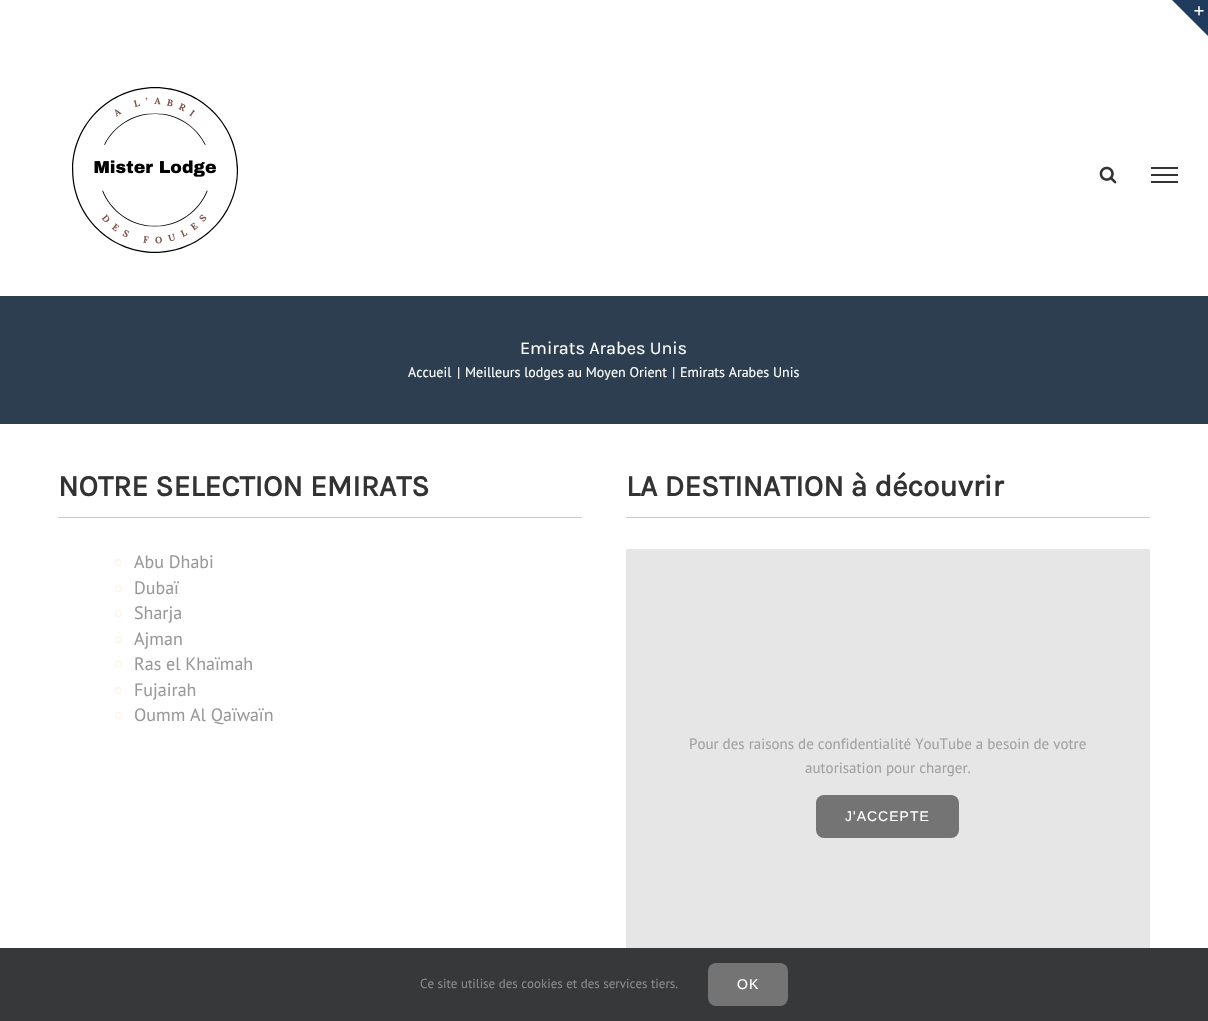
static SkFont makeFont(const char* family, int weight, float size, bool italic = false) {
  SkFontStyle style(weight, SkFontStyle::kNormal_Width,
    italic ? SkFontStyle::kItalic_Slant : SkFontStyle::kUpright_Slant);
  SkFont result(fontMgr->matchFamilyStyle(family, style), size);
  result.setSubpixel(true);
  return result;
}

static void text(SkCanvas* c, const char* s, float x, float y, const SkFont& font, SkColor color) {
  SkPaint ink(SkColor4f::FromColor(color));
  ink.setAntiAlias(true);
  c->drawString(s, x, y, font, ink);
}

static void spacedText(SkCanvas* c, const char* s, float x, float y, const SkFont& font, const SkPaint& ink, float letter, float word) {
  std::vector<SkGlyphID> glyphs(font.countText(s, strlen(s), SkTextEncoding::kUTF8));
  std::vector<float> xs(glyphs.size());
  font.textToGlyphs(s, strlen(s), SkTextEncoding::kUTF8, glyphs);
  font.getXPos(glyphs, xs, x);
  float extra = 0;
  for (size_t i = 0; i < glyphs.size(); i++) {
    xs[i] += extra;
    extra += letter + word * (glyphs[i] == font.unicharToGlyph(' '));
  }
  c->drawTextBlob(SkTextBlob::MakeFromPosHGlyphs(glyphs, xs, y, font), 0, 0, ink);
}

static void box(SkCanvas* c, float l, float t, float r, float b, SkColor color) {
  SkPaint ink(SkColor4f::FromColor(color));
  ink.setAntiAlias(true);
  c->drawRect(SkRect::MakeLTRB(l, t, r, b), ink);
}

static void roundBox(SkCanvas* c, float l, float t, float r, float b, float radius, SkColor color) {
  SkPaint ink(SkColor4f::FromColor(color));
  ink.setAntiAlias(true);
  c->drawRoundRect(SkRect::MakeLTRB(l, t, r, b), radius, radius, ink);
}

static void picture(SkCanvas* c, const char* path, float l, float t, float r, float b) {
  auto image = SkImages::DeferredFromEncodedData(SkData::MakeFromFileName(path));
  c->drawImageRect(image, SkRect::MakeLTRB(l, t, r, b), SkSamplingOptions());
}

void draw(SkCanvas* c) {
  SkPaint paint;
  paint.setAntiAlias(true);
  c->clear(0xffffffff);
  paint.setColor(0xff1f3b5e);
  c->drawPath(SkPathBuilder().moveTo(1172, 0).lineTo(1208, 0).lineTo(1208, 36).close().detach(), paint);
  picture(c, "img_01.png", 1194, 6, 1204, 16);
  picture(c, "img_02.png", 72, 87, 238, 253);
  picture(c, "img_03.png", 1099, 166, 1117, 184);
  box(c, 1151, 167, 1178, 169, 0xff333333);
  box(c, 1151, 174, 1178, 176, 0xff333333);
  box(c, 1151, 181, 1178, 183, 0xff333333);
  box(c, 0, 296, 1208, 424, 0xff2c3e50);
  SkFont face1 = makeFont("Karla", 400, 18);
  text(c, "Emirats Arabes Unis", 520, 354, face1, 0xffffffff);
  SkFont face2 = makeFont("PT Sans", 400, 14);
  text(c, "Accueil", 408, 377, face2, 0xffffffff);
  text(c, "|", 457, 377, face2, 0xffffffff);
  text(c, "Meilleurs lodges au Moyen Orient", 465, 377, face2, 0xffffffff);
  text(c, "|", 672, 377, face2, 0xffffffff);
  text(c, "Emirats Arabes Unis", 680, 377, face2, 0xffffffff);
  box(c, 58, 517, 582, 518, 0xffe2c3c3);
  SkFont face3 = makeFont("Karla", 700, 30);
  text(c, "NOTRE SELECTION EMIRATS", 58, 496, face3, 0xff333333);
  paint.setStyle(SkPaint::kStroke_Style);
  paint.setStrokeWidth(1);
  paint.setColor(0xffffefd5);
  c->drawCircle(118.5f, 562.5f, 3, paint);
  SkFont face4 = makeFont("PT Sans", 400, 18);
  text(c, "Abu Dhabi", 134, 568, face4, 0xff999999);
  c->drawCircle(118.5f, 588.5f, 3, paint);
  text(c, "Dubaï", 134, 594, face4, 0xff999999);
  c->drawCircle(118.5f, 613.5f, 3, paint);
  text(c, "Sharja", 134, 619, face4, 0xff999999);
  c->drawCircle(118.5f, 639.5f, 3, paint);
  text(c, "Ajman", 134, 645, face4, 0xff999999);
  c->drawCircle(118.5f, 664.5f, 3, paint);
  text(c, "Ras el Khaïmah", 134, 670, face4, 0xff999999);
  c->drawCircle(118.5f, 690.5f, 3, paint);
  text(c, "Fujairah", 134, 696, face4, 0xff999999);
  c->drawCircle(118.5f, 715.5f, 3, paint);
  text(c, "Oumm Al Qaïwaïn", 134, 721, face4, 0xff999999);
  box(c, 626, 517, 1150, 518, 0xffe2c3c3);
  text(c, "LA DESTINATION à découvrir", 626, 496, face3, 0xff333333);
  box(c, 626, 549, 1150, 948, 0xffe6e6e6);
  SkFont face5 = makeFont("PT Sans", 400, 15);
  text(c, "Pour des raisons de confidentialité YouTube a besoin de votre", 689, 749, face5, 0xffa1a1a1);
  text(c, "autorisation pour charger.", 805, 773, face5, 0xffa1a1a1);
  roundBox(c, 816, 795, 959, 838, 8, 0xff747474);
  SkFont face6 = makeFont("Liberation Sans", 400, 14);
  paint.setStyle(SkPaint::kFill_Style);
  paint.setColor(0xffffffff);
  spacedText(c, "J'ACCEPTE", 845, 821, face6, paint, 1, 0);
  box(c, 0, 948, 1208, 1021, 0xff363839);
  SkFont face7 = makeFont("PT Sans", 400, 13);
  text(c, "Ce site utilise des cookies et des services tiers.", 420, 988, face7, 0xff8c8989);
  roundBox(c, 708, 963, 788, 1006, 8, 0xff747474);
  spacedText(c, "OK", 737, 989, face6, paint, 1, 0);
}
